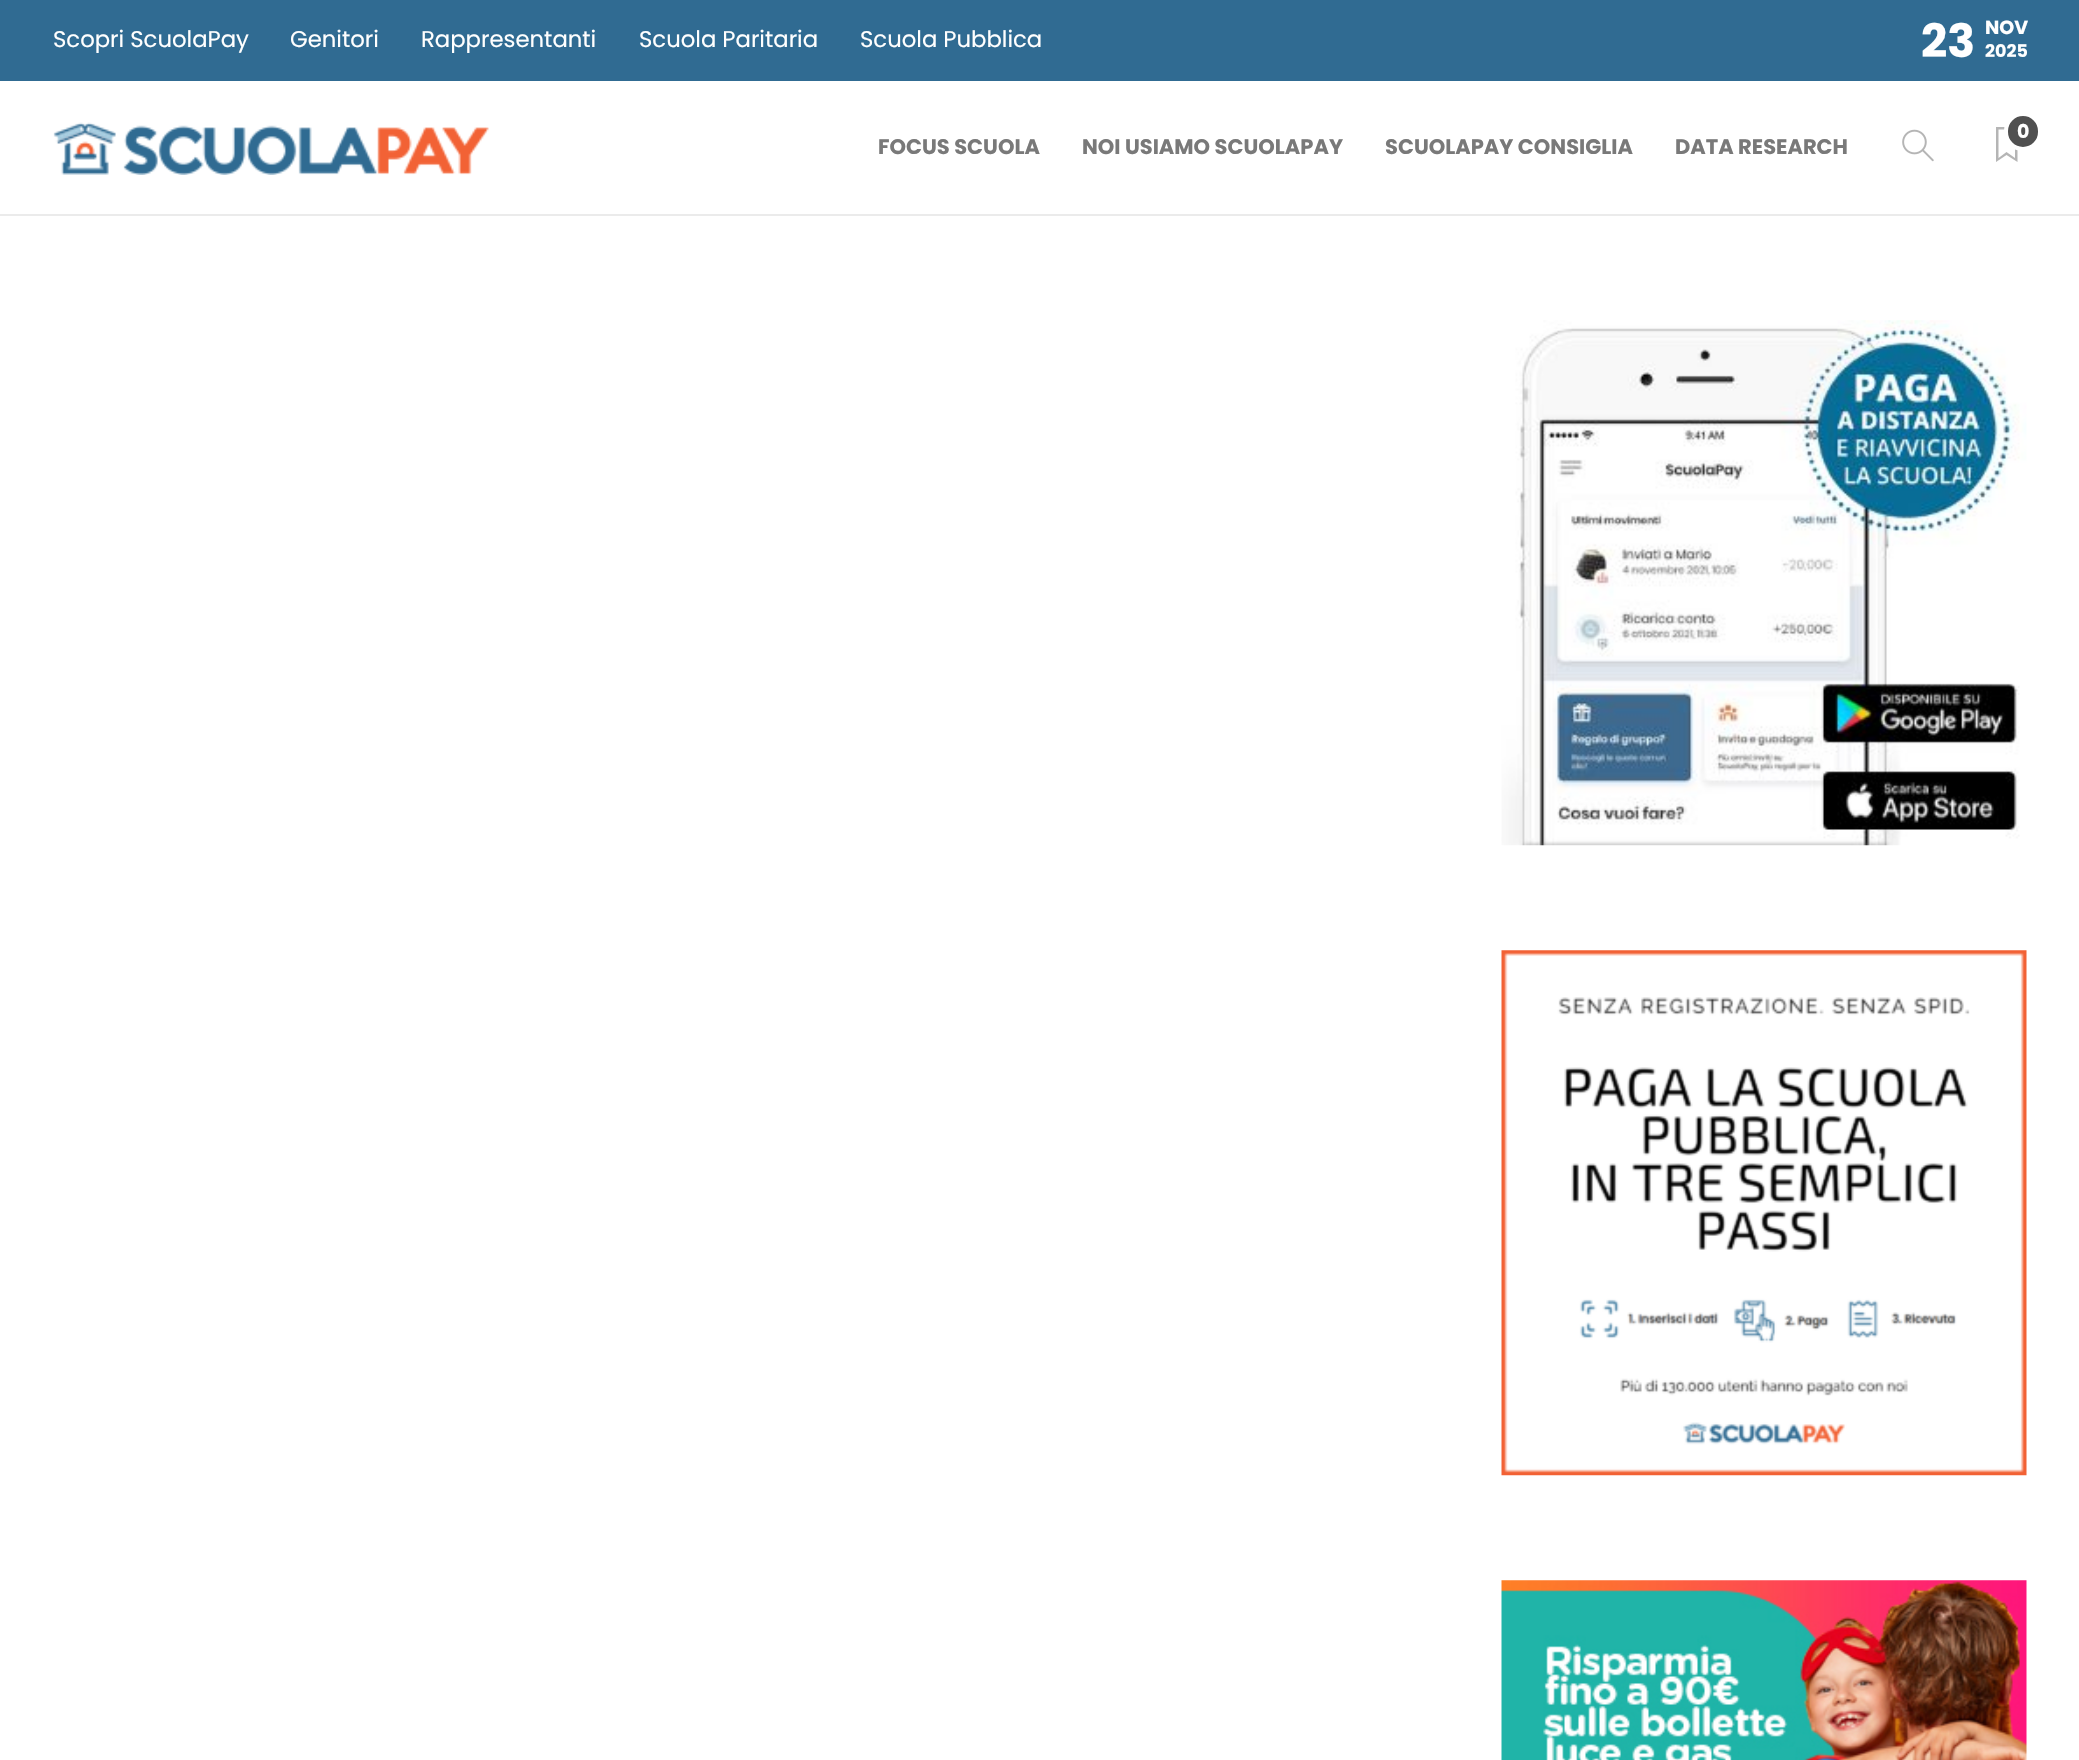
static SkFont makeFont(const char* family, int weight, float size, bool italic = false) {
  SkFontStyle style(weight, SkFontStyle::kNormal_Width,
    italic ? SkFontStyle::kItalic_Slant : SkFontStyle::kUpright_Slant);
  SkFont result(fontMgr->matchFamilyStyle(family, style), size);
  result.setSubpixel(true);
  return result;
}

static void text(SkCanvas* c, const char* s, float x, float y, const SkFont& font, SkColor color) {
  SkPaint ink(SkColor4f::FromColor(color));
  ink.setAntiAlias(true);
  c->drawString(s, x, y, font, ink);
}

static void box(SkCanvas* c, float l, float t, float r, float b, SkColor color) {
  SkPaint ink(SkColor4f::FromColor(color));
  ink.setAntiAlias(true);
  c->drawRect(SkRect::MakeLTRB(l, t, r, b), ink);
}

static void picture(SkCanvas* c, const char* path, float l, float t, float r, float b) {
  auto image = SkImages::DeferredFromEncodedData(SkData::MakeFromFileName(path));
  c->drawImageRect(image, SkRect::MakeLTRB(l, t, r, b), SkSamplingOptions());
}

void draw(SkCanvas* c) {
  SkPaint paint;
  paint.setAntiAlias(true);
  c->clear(0xffffffff);
  box(c, 0, 0, 2079, 81, 0xff306b92);
  SkFont face1 = makeFont("Poppins", 400, 22.75f);
  text(c, "Scopri ScuolaPay", 53, 47, face1, 0xffffffff);
  text(c, "Genitori", 290, 47, face1, 0xffffffff);
  text(c, "Rappresentanti", 421, 47, face1, 0xffffffff);
  text(c, "Scuola Paritaria", 639, 47, face1, 0xffffffff);
  text(c, "Scuola Pubblica", 860, 47, face1, 0xffffffff);
  SkFont face2 = makeFont("Poppins", 700, 46);
  text(c, "23", 1921, 57, face2, 0xffffffff);
  SkFont face3 = makeFont("Poppins", 700, 19);
  text(c, "NOV", 1985, 34, face3, 0xffffffff);
  SkFont face4 = makeFont("Poppins", 700, 17.5f);
  text(c, "2025", 1985, 57, face4, 0xffffffff);
  box(c, 0, 214, 2079, 216, 0xffebebeb);
  picture(c, "img_01.png", 53, 122, 489, 175);
  SkFont face5 = makeFont("Poppins", 700, 21);
  text(c, "FOCUS SCUOLA", 878, 154, face5, 0xff797979);
  text(c, "NOI USIAMO SCUOLAPAY", 1082, 154, face5, 0xff797979);
  text(c, "SCUOLAPAY CONSIGLIA", 1385, 154, face5, 0xff797979);
  text(c, "DATA RESEARCH", 1675, 154, face5, 0xff797979);
  picture(c, "img_02.png", 1902, 129, 1934, 162);
  paint.setColor(0xffb5b5b5);
  c->drawPath(SkPathBuilder().moveTo(1996, 127).lineTo(1996, 162).lineTo(2006.5f, 155).lineTo(2017.5f, 162).lineTo(2017.5f, 127).close().moveTo(2015, 158).lineTo(2006.5f, 152).lineTo(1998.5f, 158).lineTo(1998.5f, 129.5f).lineTo(2015, 129.5f).close().detach(), paint);
  paint.setColor(0xff505050);
  c->drawRoundRect(SkRect::MakeLTRB(2006, 114, 2040, 149), 17, 17, paint);
  paint.setStyle(SkPaint::kStroke_Style);
  paint.setStrokeWidth(4);
  paint.setColor(0xffffffff);
  c->drawRoundRect(SkRect::MakeLTRB(2006, 114, 2040, 149), 17, 17, paint);
  text(c, "0", 2017, 138, face3, 0xffffffff);
  picture(c, "img_03.png", 1501, 320, 2027, 846);
  picture(c, "img_04.png", 1501, 950, 2027, 1476);
  picture(c, "img_05.png", 1501, 1580, 2027, 1760);
}
